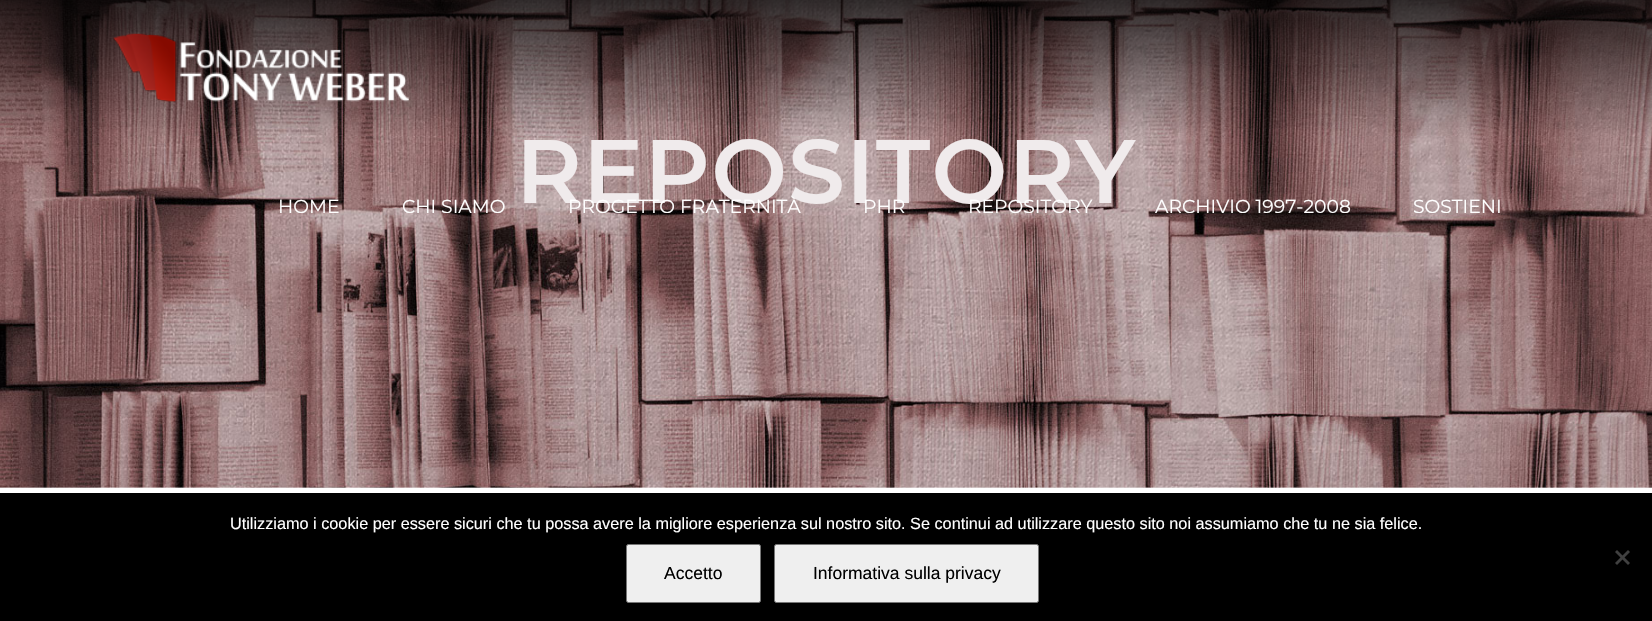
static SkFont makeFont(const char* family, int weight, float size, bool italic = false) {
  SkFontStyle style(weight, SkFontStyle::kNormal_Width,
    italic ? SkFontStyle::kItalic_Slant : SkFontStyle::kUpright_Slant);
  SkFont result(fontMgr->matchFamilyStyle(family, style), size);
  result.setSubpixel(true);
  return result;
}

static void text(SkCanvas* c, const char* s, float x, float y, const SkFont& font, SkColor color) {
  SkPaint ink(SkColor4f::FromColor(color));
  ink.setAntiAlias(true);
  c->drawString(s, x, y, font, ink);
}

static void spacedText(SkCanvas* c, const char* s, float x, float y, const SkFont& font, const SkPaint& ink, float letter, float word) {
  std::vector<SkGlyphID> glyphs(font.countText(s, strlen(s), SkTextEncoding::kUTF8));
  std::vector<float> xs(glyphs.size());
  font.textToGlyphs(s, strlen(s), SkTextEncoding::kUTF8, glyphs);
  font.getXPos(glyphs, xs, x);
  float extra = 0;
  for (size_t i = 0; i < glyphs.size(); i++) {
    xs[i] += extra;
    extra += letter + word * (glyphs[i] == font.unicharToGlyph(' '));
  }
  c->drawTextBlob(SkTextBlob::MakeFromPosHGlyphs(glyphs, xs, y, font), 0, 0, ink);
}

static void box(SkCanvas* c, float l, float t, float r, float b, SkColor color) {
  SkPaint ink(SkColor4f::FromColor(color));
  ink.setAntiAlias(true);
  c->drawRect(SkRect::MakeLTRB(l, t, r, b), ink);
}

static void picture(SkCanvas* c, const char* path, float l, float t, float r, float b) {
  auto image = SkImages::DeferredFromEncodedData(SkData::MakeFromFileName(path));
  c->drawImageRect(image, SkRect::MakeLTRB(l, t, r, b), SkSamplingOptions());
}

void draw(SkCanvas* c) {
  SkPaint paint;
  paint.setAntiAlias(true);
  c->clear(0xffffffff);
  picture(c, "img_01.png", 0, 0, 1652, 488);
  SkFont face1 = makeFont("Montserrat", 600, 90);
  paint.setColor(0xfff0ebec);
  spacedText(c, "REPOSITORY", 516, 203, face1, paint, 1.25f, 0);
  picture(c, "img_02.png", 113, 33, 409, 103);
  SkFont face2 = makeFont("Montserrat", 400, 18.75f);
  text(c, "HOME", 278, 213, face2, 0xffffffff);
  text(c, "CHI SIAMO", 402, 213, face2, 0xffffffff);
  text(c, "PROGETTO FRATERNITÀ", 568, 213, face2, 0xffffffff);
  text(c, "PHR", 863, 213, face2, 0xffffffff);
  text(c, "REPOSITORY", 968, 213, face2, 0xffffffff);
  text(c, "ARCHIVIO 1997-2008", 1155, 213, face2, 0xffffffff);
  text(c, "SOSTIENI", 1413, 213, face2, 0xffffffff);
  box(c, 0, 493, 1652, 621, 0xff000000);
  SkFont face3 = makeFont("Liberation Sans", 400, 16.25f);
  text(c, "Utilizziamo i cookie per essere sicuri che tu possa avere la migliore esperienza sul nostro sito. Se continui ad utilizzare questo sito noi assumiamo che tu ne sia felice.", 230, 529, face3, 0xffffffff);
  paint.setColor(0xff404040);
  c->drawPath(SkPathBuilder().moveTo(1628, 550).lineTo(1630, 552).lineTo(1617, 565).lineTo(1615, 563).close().detach(), paint);
  c->drawPath(SkPathBuilder().moveTo(1615, 552).lineTo(1617, 550).lineTo(1630, 563).lineTo(1628, 565).close().detach(), paint);
  paint.setColor(0xffefefef);
  c->drawRoundRect(SkRect::MakeLTRB(626.5f, 544.5f, 760.5f, 602.5f), 2, 2, paint);
  paint.setStyle(SkPaint::kStroke_Style);
  paint.setStrokeWidth(1);
  paint.setColor(0xff767676);
  c->drawRoundRect(SkRect::MakeLTRB(626.5f, 544.5f, 760.5f, 602.5f), 2, 2, paint);
  SkFont face4 = makeFont("Liberation Sans", 400, 17.5f);
  text(c, "Accetto", 664, 579, face4, 0xff000000);
  paint.setStyle(SkPaint::kFill_Style);
  paint.setColor(0xffefefef);
  c->drawRoundRect(SkRect::MakeLTRB(774.5f, 544.5f, 1038.5f, 602.5f), 2, 2, paint);
  paint.setStyle(SkPaint::kStroke_Style);
  paint.setColor(0xff767676);
  c->drawRoundRect(SkRect::MakeLTRB(774.5f, 544.5f, 1038.5f, 602.5f), 2, 2, paint);
  text(c, "Informativa sulla privacy", 813, 579, face4, 0xff000000);
}
